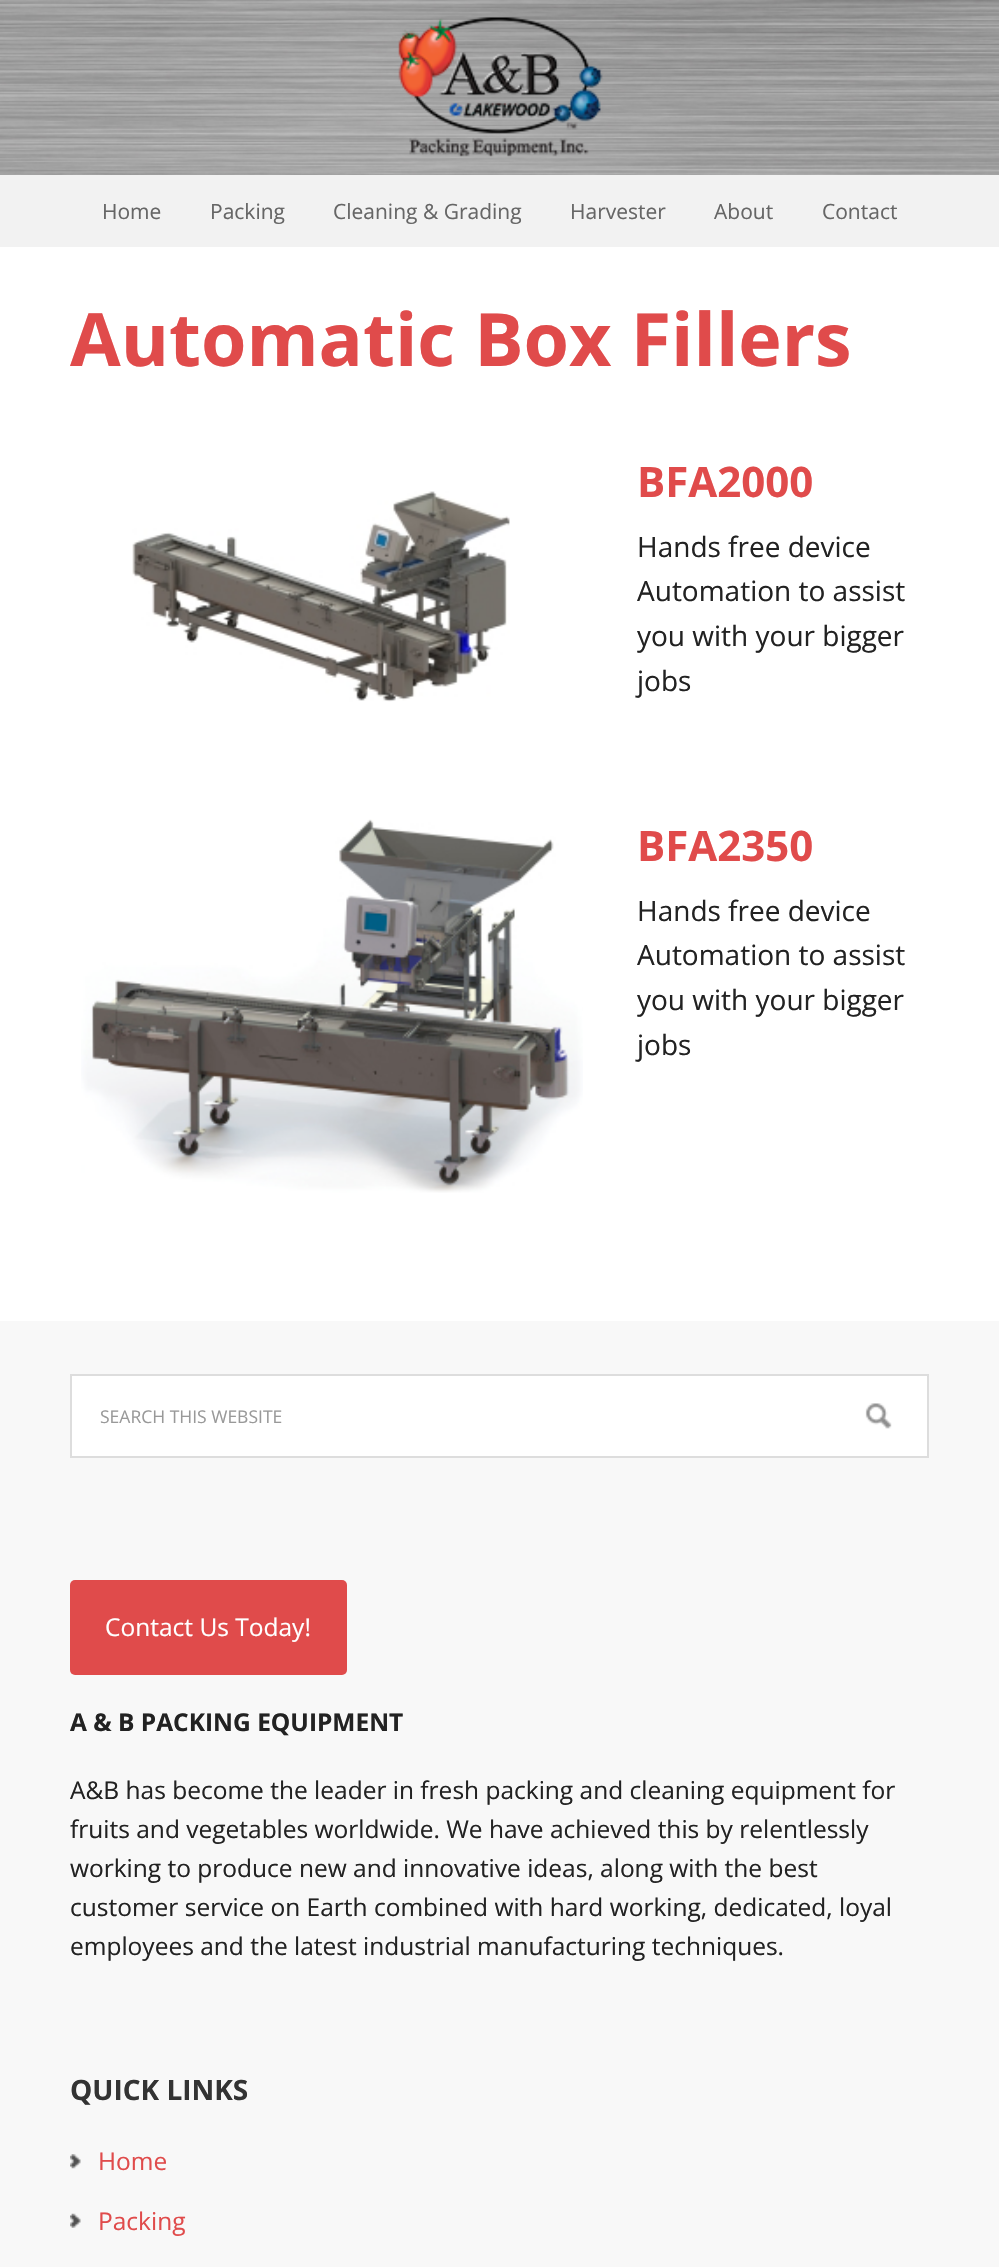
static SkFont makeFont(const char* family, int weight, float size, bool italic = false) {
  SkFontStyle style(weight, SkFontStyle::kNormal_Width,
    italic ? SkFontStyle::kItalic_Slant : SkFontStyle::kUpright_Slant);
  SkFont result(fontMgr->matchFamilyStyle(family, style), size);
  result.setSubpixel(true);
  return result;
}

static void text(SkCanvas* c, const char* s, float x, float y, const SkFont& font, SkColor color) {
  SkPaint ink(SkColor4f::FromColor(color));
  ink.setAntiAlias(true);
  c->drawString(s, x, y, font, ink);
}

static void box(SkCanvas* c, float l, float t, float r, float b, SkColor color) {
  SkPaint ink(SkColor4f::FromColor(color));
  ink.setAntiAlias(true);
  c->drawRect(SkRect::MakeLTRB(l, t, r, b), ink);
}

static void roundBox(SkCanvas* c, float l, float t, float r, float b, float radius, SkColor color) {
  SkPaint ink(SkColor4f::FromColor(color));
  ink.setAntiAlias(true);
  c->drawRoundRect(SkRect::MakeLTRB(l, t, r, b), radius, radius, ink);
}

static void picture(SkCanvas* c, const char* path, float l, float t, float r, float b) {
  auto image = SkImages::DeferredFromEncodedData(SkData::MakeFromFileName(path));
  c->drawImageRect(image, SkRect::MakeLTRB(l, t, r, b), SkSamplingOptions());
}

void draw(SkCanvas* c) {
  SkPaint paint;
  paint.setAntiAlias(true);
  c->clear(0xffffffff);
  picture(c, "img_01.png", 0, 0, 999, 175);
  picture(c, "img_02.png", 398, 17, 603, 157);
  box(c, 0, 175, 999, 247, 0xfff2f2f2);
  SkFont face1 = makeFont("Open Sans", 400, 21);
  text(c, "Home", 102, 219, face1, 0xff666666);
  text(c, "Packing", 210, 219, face1, 0xff666666);
  text(c, "Cleaning & Grading", 333, 219, face1, 0xff666666);
  text(c, "Harvester", 570, 219, face1, 0xff666666);
  text(c, "About", 714, 219, face1, 0xff666666);
  text(c, "Contact", 822, 219, face1, 0xff666666);
  SkFont face2 = makeFont("Open Sans", 700, 73.5f);
  text(c, "Automatic Box Fillers", 70, 366, face2, 0xffe04b4b);
  SkFont face3 = makeFont("Open Sans", 700, 42);
  text(c, "BFA2000", 637, 497, face3, 0xffe04b4b);
  picture(c, "img_03.png", 132, 491, 510, 702);
  SkFont face4 = makeFont("Open Sans", 400, 28);
  text(c, "Hands free device", 637, 557, face4, 0xff222222);
  text(c, "Automation to assist", 637, 601, face4, 0xff222222);
  text(c, "you with your bigger", 637, 646, face4, 0xff222222);
  text(c, "jobs", 637, 691, face4, 0xff222222);
  picture(c, "img_04.png", 81, 819, 583, 1193);
  text(c, "BFA2350", 637, 861, face3, 0xffe04b4b);
  text(c, "Hands free device", 637, 921, face4, 0xff222222);
  text(c, "Automation to assist", 637, 965, face4, 0xff222222);
  text(c, "you with your bigger", 637, 1010, face4, 0xff222222);
  text(c, "jobs", 637, 1055, face4, 0xff222222);
  box(c, 0, 1321, 999, 2267, 0xfff8f8f8);
  box(c, 72, 1376, 927, 1456, 0xffffffff);
  picture(c, "img_05.png", 865, 1403, 892, 1429);
  paint.setStyle(SkPaint::kStroke_Style);
  paint.setStrokeWidth(2);
  paint.setColor(0xffdddddd);
  c->drawRect(SkRect::MakeLTRB(71, 1375, 928, 1457), paint);
  SkFont face5 = makeFont("Open Sans", 400, 17.5f);
  text(c, "SEARCH THIS WEBSITE", 100, 1423, face5, 0xff999999);
  roundBox(c, 70, 1580, 347, 1675, 5, 0xffe04b4b);
  SkFont face6 = makeFont("Open Sans", 400, 24.5f);
  text(c, "Contact Us Today!", 105, 1636, face6, 0xffffffff);
  SkFont face7 = makeFont("Open Sans", 700, 24.5f);
  text(c, "A & B PACKING EQUIPMENT", 70, 1731, face7, 0xff222222);
  text(c, "A&B has become the leader in fresh packing and cleaning equipment for", 70, 1799, face6, 0xff222222);
  text(c, "fruits and vegetables worldwide. We have achieved this by relentlessly", 70, 1838, face6, 0xff222222);
  text(c, "working to produce new and innovative ideas, along with the best", 70, 1877, face6, 0xff222222);
  text(c, "customer service on Earth combined with hard working, dedicated, loyal", 70, 1916, face6, 0xff222222);
  text(c, "employees and the latest industrial manufacturing techniques.", 70, 1955, face6, 0xff222222);
  SkFont face8 = makeFont("Open Sans", 700, 28);
  text(c, "QUICK LINKS", 70, 2100, face8, 0xff333333);
  picture(c, "img_06.png", 70, 2154, 81, 2169);
  text(c, "Home", 98, 2170, face6, 0xffe04b4b);
  picture(c, "img_07.png", 70, 2213, 81, 2228);
  text(c, "Packing", 98, 2230, face6, 0xffe04b4b);
}
